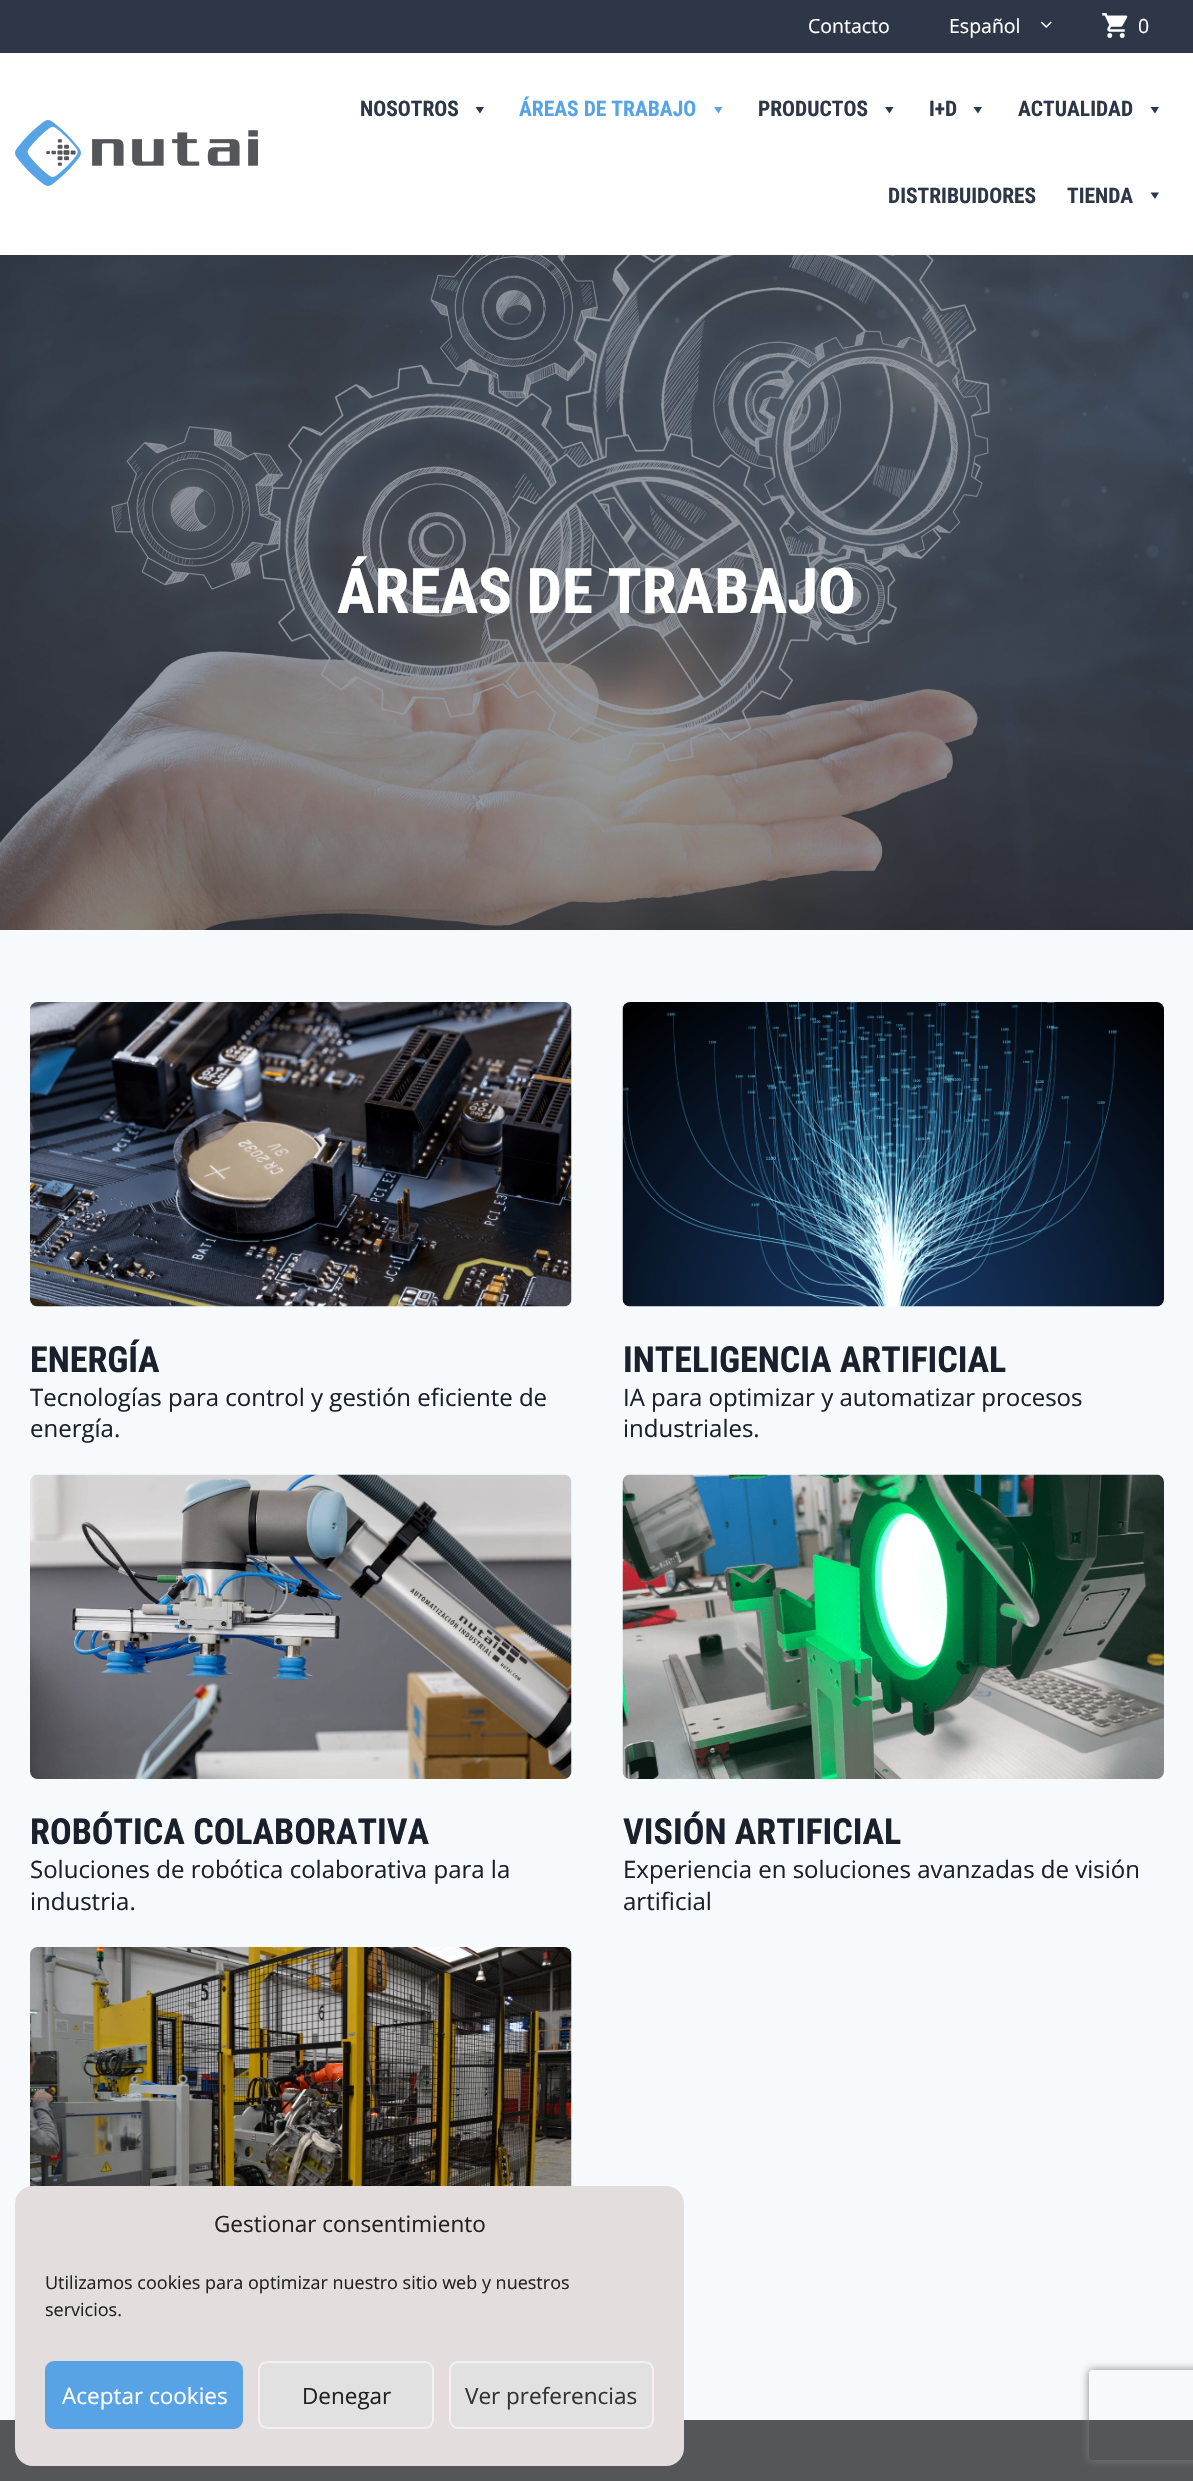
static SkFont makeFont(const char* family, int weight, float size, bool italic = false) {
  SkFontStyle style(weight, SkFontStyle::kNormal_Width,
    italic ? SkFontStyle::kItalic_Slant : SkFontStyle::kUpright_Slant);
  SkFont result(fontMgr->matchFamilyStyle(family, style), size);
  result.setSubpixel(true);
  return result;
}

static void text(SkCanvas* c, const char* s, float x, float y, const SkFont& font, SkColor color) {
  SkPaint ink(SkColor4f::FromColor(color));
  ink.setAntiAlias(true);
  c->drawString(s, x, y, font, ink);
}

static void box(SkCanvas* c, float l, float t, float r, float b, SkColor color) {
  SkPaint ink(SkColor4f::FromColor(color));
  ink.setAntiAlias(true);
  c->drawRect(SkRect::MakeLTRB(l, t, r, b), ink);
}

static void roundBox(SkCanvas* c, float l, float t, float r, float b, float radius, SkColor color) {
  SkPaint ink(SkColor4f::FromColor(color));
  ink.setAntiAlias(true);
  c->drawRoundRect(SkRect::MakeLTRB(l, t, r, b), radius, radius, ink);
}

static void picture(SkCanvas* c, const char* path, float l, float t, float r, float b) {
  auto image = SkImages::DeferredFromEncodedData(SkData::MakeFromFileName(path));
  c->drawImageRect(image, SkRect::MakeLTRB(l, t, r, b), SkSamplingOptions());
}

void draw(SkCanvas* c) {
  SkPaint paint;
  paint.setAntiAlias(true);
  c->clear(0xfff7fafc);
  box(c, 0, 0, 1193, 53, 0xff2d3748);
  SkFont face1 = makeFont("Open Sans", 400, 19.5f);
  text(c, "Contacto", 808, 33, face1, 0xffffffff);
  text(c, "Español", 949, 33, face1, 0xffffffff);
  picture(c, "img_01.png", 1040, 21, 1052, 28);
  picture(c, "img_02.png", 1102, 13, 1128, 38);
  text(c, "0", 1138, 33, face1, 0xffffffff);
  box(c, 0, 53, 1193, 255, 0xffffffff);
  picture(c, "img_03.png", 15, 120, 258, 186);
  SkFont face2 = makeFont("Roboto Condensed", 700, 21.5f);
  text(c, "NOSOTROS", 360, 116, face2, 0xff2d3748);
  paint.setColor(0xff2d3748);
  c->drawPath(SkPathBuilder().moveTo(484, 107).lineTo(480, 113.5f).lineTo(475.5f, 107).close().detach(), paint);
  text(c, "ÁREAS DE TRABAJO", 519, 116, face2, 0xff58a3e6);
  paint.setColor(0xff58a3e6);
  c->drawPath(SkPathBuilder().moveTo(722.5f, 107).lineTo(718.5f, 113.5f).lineTo(714, 107).close().detach(), paint);
  text(c, "PRODUCTOS", 758, 116, face2, 0xff2d3748);
  paint.setColor(0xff2d3748);
  c->drawPath(SkPathBuilder().moveTo(893.5f, 107).lineTo(889.5f, 113.5f).lineTo(885, 107).close().detach(), paint);
  text(c, "I+D", 929, 116, face2, 0xff2d3748);
  c->drawPath(SkPathBuilder().moveTo(982, 107).lineTo(978, 113.5f).lineTo(973.5f, 107).close().detach(), paint);
  text(c, "ACTUALIDAD", 1018, 116, face2, 0xff2d3748);
  c->drawPath(SkPathBuilder().moveTo(1159, 107).lineTo(1155, 113.5f).lineTo(1150.5f, 107).close().detach(), paint);
  text(c, "DISTRIBUIDORES", 888, 203, face2, 0xff2d3748);
  text(c, "TIENDA", 1067, 203, face2, 0xff2d3748);
  c->drawPath(SkPathBuilder().moveTo(1159, 192.5f).lineTo(1155, 199).lineTo(1150.5f, 192.5f).close().detach(), paint);
  picture(c, "img_04.png", 0, 255, 1193, 930);
  SkFont face3 = makeFont("Roboto Condensed", 700, 63);
  text(c, "ÁREAS DE TRABAJO", 337, 613, face3, 0xffffffff);
  picture(c, "img_05.png", 30, 1002, 572, 1307);
  SkFont face4 = makeFont("Roboto Condensed", 700, 36);
  text(c, "ENERGÍA", 30, 1372, face4, 0xff1a202c);
  SkFont face5 = makeFont("Open Sans", 400, 24);
  text(c, "Tecnologías para control y gestión eficiente de", 30, 1406, face5, 0xff1a202c);
  text(c, "energía.", 30, 1437, face5, 0xff1a202c);
  picture(c, "img_06.png", 622, 1002, 1164, 1307);
  text(c, "INTELIGENCIA ARTIFICIAL", 623, 1372, face4, 0xff1a202c);
  text(c, "IA para optimizar y automatizar procesos", 623, 1406, face5, 0xff1a202c);
  text(c, "industriales.", 623, 1437, face5, 0xff1a202c);
  picture(c, "img_07.png", 30, 1474, 572, 1779);
  text(c, "ROBÓTICA COLABORATIVA", 30, 1844, face4, 0xff1a202c);
  text(c, "Soluciones de robótica colaborativa para la", 30, 1878, face5, 0xff1a202c);
  text(c, "industria.", 30, 1910, face5, 0xff1a202c);
  picture(c, "img_08.png", 622, 1474, 1164, 1779);
  text(c, "VISIÓN ARTIFICIAL", 623, 1844, face4, 0xff1a202c);
  text(c, "Experiencia en soluciones avanzadas de visión", 623, 1878, face5, 0xff1a202c);
  text(c, "artificial", 623, 1910, face5, 0xff1a202c);
  picture(c, "img_09.png", 30, 1947, 572, 2187);
  box(c, 0, 2420, 1193, 2481, 0xff54565a);
  roundBox(c, 15, 2186, 684, 2466, 18, 0xffe4dddd);
  SkFont face6 = makeFont("Open Sans", 400, 22.5f);
  text(c, "Gestionar consentimiento", 214, 2232, face6, 0xff222222);
  SkFont face7 = makeFont("Open Sans", 400, 18);
  text(c, "Utilizamos cookies para optimizar nuestro sitio web y nuestros", 45, 2289, face7, 0xff222222);
  text(c, "servicios.", 45, 2316, face7, 0xff222222);
  paint.setColor(0xff58a3e6);
  c->drawRoundRect(SkRect::MakeLTRB(46, 2362, 242, 2428), 8, 8, paint);
  paint.setStyle(SkPaint::kStroke_Style);
  paint.setStrokeWidth(2);
  c->drawRoundRect(SkRect::MakeLTRB(46, 2362, 242, 2428), 8, 8, paint);
  text(c, "Aceptar cookies", 62, 2404, face6, 0xffffffff);
  paint.setStyle(SkPaint::kFill_Style);
  paint.setColor(0xffe2e1e1);
  c->drawRoundRect(SkRect::MakeLTRB(259, 2362, 433, 2428), 8, 8, paint);
  paint.setStyle(SkPaint::kStroke_Style);
  paint.setColor(0xfff2f2f2);
  c->drawRoundRect(SkRect::MakeLTRB(259, 2362, 433, 2428), 8, 8, paint);
  text(c, "Denegar", 302, 2404, face6, 0xff222222);
  paint.setStyle(SkPaint::kFill_Style);
  paint.setColor(0xffe2e1e1);
  c->drawRoundRect(SkRect::MakeLTRB(450, 2362, 653, 2428), 8, 8, paint);
  paint.setStyle(SkPaint::kStroke_Style);
  paint.setColor(0xfff2f2f2);
  c->drawRoundRect(SkRect::MakeLTRB(450, 2362, 653, 2428), 8, 8, paint);
  text(c, "Ver preferencias", 465, 2404, face6, 0xff333333);
  c->save();
  c->clipPath(SkPathBuilder(SkPathFillType::kEvenOdd).moveTo(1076, 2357).lineTo(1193, 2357).lineTo(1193, 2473).lineTo(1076, 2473).close().moveTo(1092, 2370).lineTo(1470, 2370).cubicTo(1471.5f, 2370, 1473, 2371.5f, 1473, 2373).lineTo(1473, 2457).cubicTo(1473, 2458.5f, 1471.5f, 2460, 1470, 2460).lineTo(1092, 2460).cubicTo(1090.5f, 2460, 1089, 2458.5f, 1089, 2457).lineTo(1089, 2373).cubicTo(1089, 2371.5f, 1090.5f, 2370, 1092, 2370).close().detach(), true);
  paint.setStyle(SkPaint::kFill_Style);
  paint.setColor(0xff808080);
  paint.setMaskFilter(SkMaskFilter::MakeBlur(kNormal_SkBlurStyle, 4));
  c->drawRoundRect(SkRect::MakeLTRB(1089, 2370, 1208, 2460), 3, 3, paint);
  paint.setMaskFilter(nullptr);
  c->restore();
}
